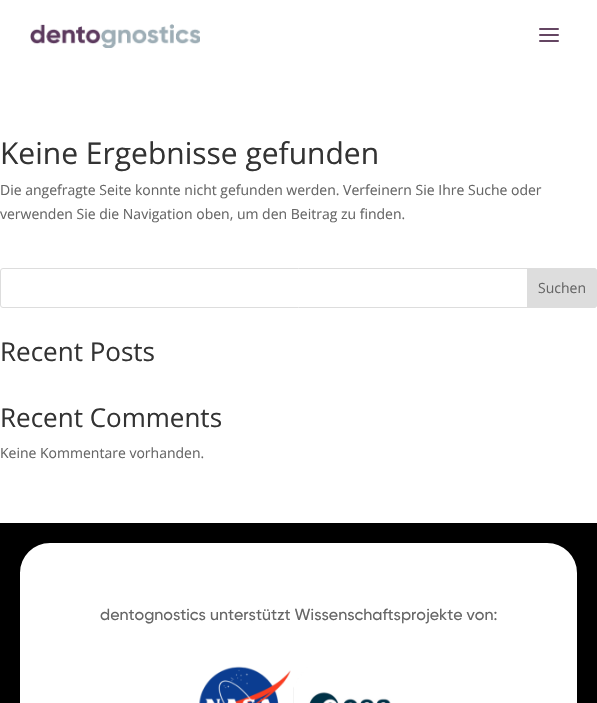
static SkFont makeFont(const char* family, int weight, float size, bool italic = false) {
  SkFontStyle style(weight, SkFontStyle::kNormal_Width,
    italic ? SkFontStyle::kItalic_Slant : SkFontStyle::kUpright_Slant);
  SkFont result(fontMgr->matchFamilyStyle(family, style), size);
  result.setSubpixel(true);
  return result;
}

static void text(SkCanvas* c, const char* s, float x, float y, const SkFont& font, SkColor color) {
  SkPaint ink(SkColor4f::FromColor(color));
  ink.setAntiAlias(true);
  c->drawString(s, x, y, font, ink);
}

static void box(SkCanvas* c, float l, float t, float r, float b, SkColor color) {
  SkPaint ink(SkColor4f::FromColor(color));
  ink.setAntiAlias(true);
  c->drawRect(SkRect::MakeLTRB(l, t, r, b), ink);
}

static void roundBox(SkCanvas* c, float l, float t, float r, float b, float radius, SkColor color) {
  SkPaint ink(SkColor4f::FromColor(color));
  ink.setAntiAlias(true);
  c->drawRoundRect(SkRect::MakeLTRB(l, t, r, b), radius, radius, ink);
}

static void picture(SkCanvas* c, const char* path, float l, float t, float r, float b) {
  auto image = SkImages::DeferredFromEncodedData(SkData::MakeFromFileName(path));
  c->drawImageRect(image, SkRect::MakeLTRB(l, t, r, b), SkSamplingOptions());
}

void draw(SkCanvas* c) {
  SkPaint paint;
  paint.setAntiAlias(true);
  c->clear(0xffffffff);
  picture(c, "img_01.png", 30, 24, 200, 48);
  roundBox(c, 539, 28, 559, 30, 1, 0xff644562);
  roundBox(c, 539, 34, 559, 36, 1, 0xff644562);
  roundBox(c, 539, 40, 559, 42, 1, 0xff644562);
  SkFont face1 = makeFont("Open Sans", 400, 30);
  text(c, "Keine Ergebnisse gefunden", 0, 164, face1, 0xff333333);
  SkFont face2 = makeFont("Open Sans", 400, 14);
  text(c, "Die angefragte Seite konnte nicht gefunden werden. Verfeinern Sie Ihre Suche oder", 0, 195, face2, 0xff666666);
  text(c, "verwenden Sie die Navigation oben, um den Beitrag zu finden.", 0, 219, face2, 0xff666666);
  paint.setStyle(SkPaint::kStroke_Style);
  paint.setStrokeWidth(1);
  paint.setColor(0xffdddddd);
  c->drawRoundRect(SkRect::MakeLTRB(0.5f, 268.5f, 596.5f, 307.5f), 2.5f, 2.5f, paint);
  paint.setStyle(SkPaint::kFill_Style);
  c->drawPath(SkPathBuilder().moveTo(527.5f, 268.5f).lineTo(594, 268.5f).cubicTo(595.5f, 268.5f, 596.5f, 269.5f, 596.5f, 271).lineTo(596.5f, 305).cubicTo(596.5f, 306.5f, 595.5f, 307.5f, 594, 307.5f).lineTo(527.5f, 307.5f).close().detach(), paint);
  paint.setStyle(SkPaint::kStroke_Style);
  c->drawPath(SkPathBuilder().moveTo(527.5f, 268.5f).lineTo(594, 268.5f).cubicTo(595.5f, 268.5f, 596.5f, 269.5f, 596.5f, 271).lineTo(596.5f, 305).cubicTo(596.5f, 306.5f, 595.5f, 307.5f, 594, 307.5f).lineTo(527.5f, 307.5f).close().detach(), paint);
  text(c, "Suchen", 538, 293, face2, 0xff666666);
  SkFont face3 = makeFont("Open Sans", 400, 26);
  text(c, "Recent Posts", 0, 361, face3, 0xff333333);
  text(c, "Recent Comments", 0, 427, face3, 0xff333333);
  text(c, "Keine Kommentare vorhanden.", 0, 458, face2, 0xff666666);
  box(c, 0, 523, 597, 573, 0xff000000);
  paint.setStyle(SkPaint::kFill_Style);
  paint.setColor(0xffffffff);
  c->drawRoundRect(SkRect::MakeLTRB(10, 533, 587, 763), 40, 40, paint);
  paint.setStyle(SkPaint::kStroke_Style);
  paint.setStrokeWidth(20);
  paint.setColor(0xff000000);
  c->drawRoundRect(SkRect::MakeLTRB(10, 533, 587, 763), 40, 40, paint);
  SkFont face4 = makeFont("Gilroy", 500, 16);
  text(c, "dentognostics unterstützt Wissenschaftsprojekte von:", 100, 620, face4, 0xff666666);
  picture(c, "img_02.png", 199, 666, 391, 703);
}
